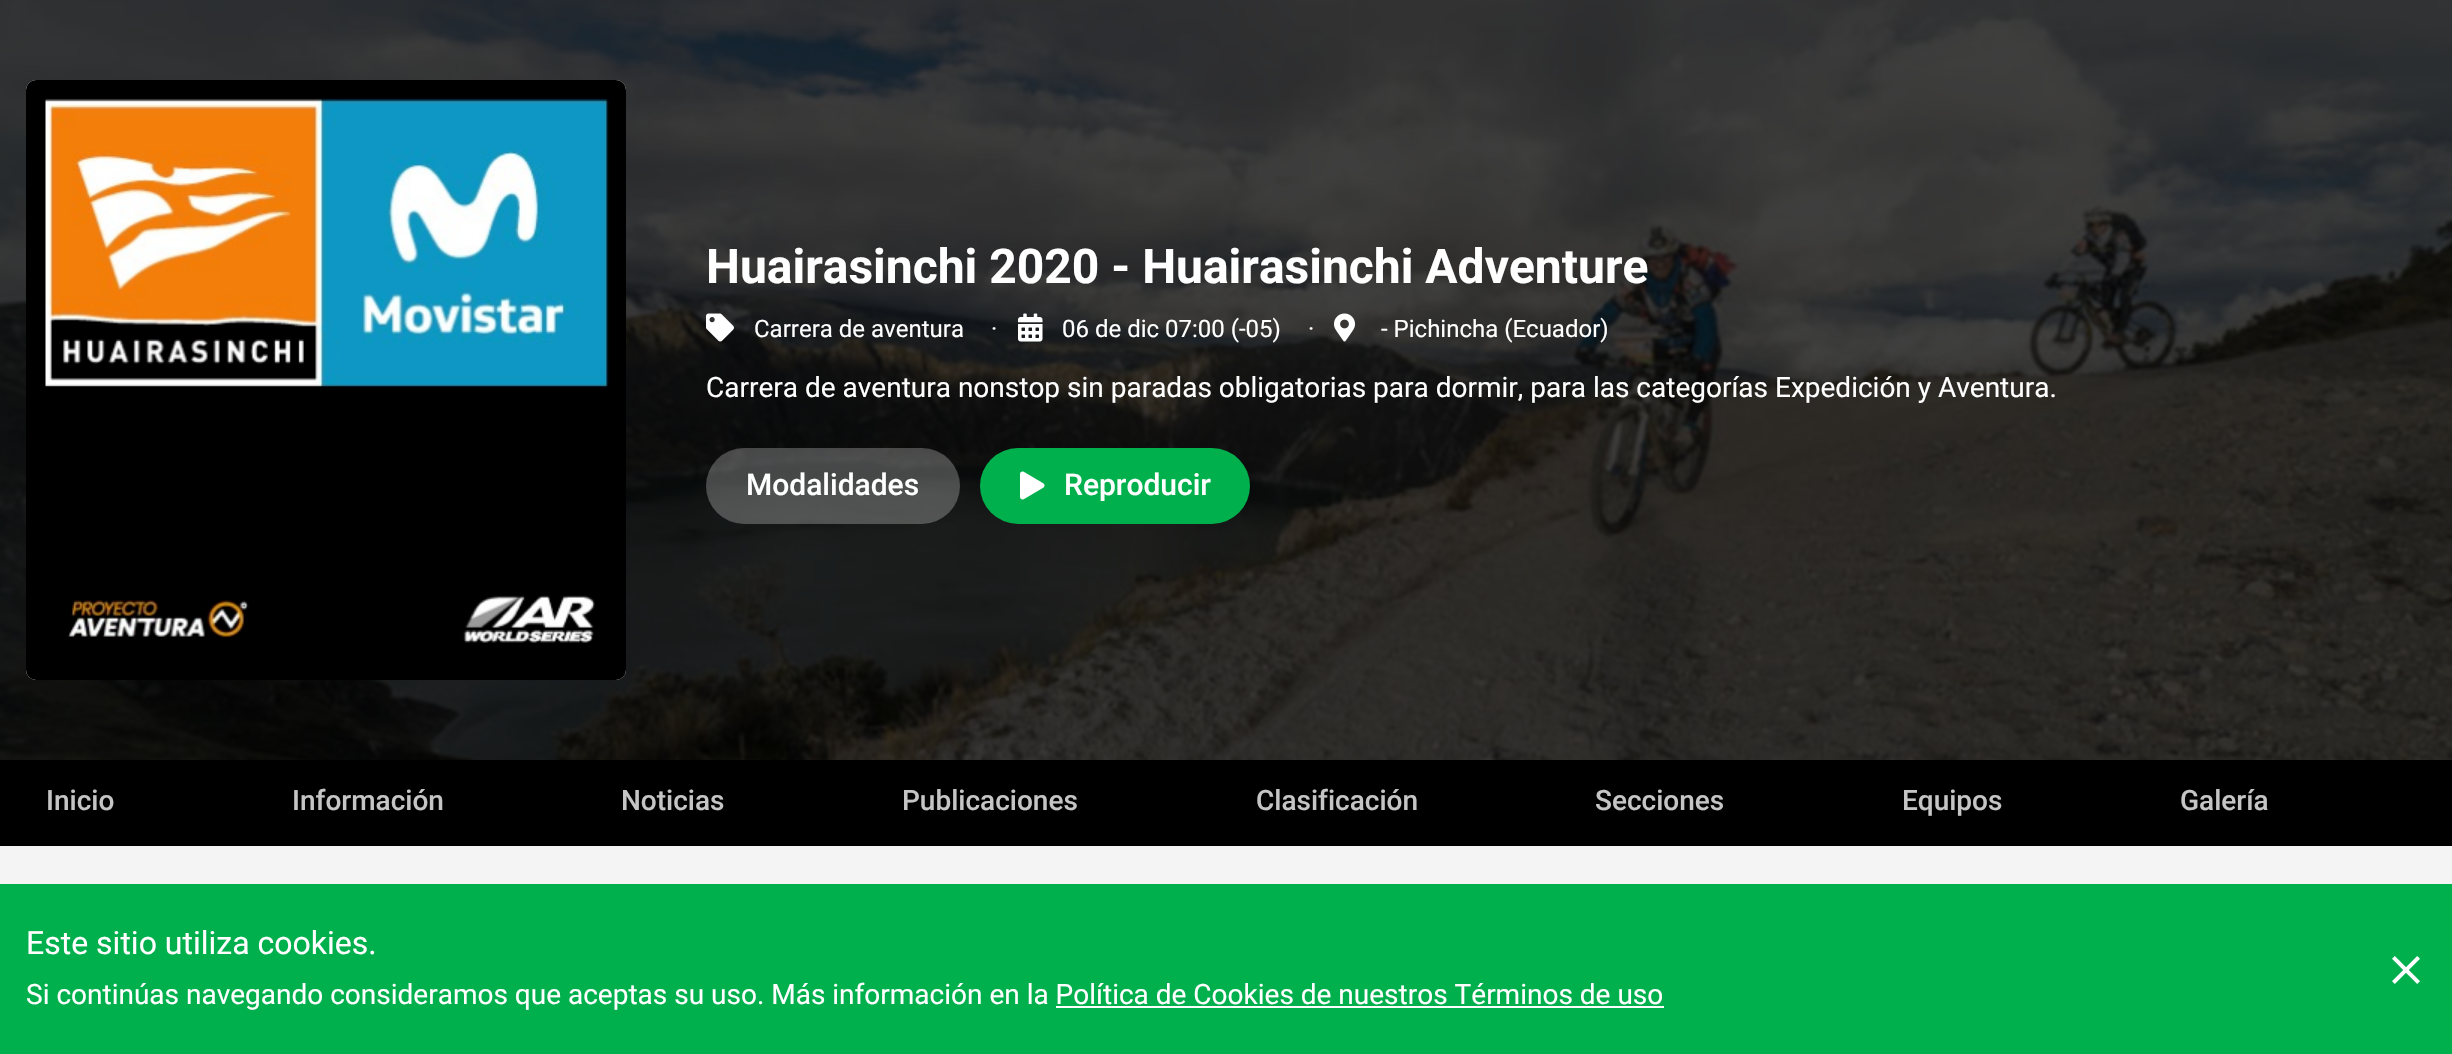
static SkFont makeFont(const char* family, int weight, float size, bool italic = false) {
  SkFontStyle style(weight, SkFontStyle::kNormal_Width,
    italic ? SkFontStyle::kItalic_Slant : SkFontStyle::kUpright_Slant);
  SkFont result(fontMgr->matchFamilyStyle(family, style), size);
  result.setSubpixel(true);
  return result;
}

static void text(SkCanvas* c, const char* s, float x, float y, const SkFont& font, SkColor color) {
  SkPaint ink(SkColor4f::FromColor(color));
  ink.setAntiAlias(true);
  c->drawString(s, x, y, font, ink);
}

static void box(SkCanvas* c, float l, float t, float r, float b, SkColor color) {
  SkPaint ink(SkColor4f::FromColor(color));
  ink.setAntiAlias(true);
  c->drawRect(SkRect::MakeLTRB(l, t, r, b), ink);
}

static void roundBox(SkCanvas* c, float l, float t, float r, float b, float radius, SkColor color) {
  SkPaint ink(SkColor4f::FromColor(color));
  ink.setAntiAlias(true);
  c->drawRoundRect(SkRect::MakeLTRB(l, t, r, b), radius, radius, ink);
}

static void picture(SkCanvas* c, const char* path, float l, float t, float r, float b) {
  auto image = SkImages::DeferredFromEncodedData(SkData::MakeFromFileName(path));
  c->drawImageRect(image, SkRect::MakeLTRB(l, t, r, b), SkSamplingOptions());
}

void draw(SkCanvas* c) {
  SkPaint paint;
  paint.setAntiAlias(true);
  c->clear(0xfff4f4f4);
  picture(c, "img_01.png", 0, 0, 2452, 760);
  roundBox(c, 26, 80, 626, 680, 10, 0xffffffff);
  picture(c, "img_02.png", 26, 80, 626, 680);
  SkFont face1 = makeFont("Roboto", 700, 48);
  text(c, "Huairasinchi 2020 - Huairasinchi Adventure", 706, 283, face1, 0xffffffff);
  picture(c, "img_03.png", 706, 313, 734, 342);
  SkFont face2 = makeFont("Roboto", 400, 24);
  text(c, "Carrera de aventura", 754, 337, face2, 0xffffffff);
  text(c, "·", 991, 337, face2, 0xffffffff);
  picture(c, "img_04.png", 1018, 313, 1043, 342);
  text(c, "06 de dic 07:00 (-05)", 1062, 337, face2, 0xffffffff);
  text(c, "·", 1308, 337, face2, 0xffffffff);
  picture(c, "img_05.png", 1334, 313, 1355, 342);
  text(c, "- Pichincha (Ecuador)", 1381, 337, face2, 0xffffffff);
  SkFont face3 = makeFont("Roboto", 400, 28);
  text(c, "Carrera de aventura nonstop sin paradas obligatorias para dormir, para las categorías Expedición y Aventura.", 706, 397, face3, 0xffffffff);
  roundBox(c, 706, 448, 960, 524, 38, 0x40ffffff);
  SkFont face4 = makeFont("Roboto", 500, 30);
  text(c, "Modalidades", 746, 495, face4, 0xffffffff);
  roundBox(c, 980, 448, 1250, 524, 38, 0xff00b04c);
  picture(c, "img_06.png", 1020, 471, 1045, 500);
  text(c, "Reproducir", 1064, 495, face4, 0xffffffff);
  box(c, 0, 760, 2452, 846, 0xff000000);
  SkFont face5 = makeFont("Roboto", 500, 28);
  text(c, "Inicio", 46, 810, face5, 0xffc5c5c5);
  text(c, "Información", 292, 810, face5, 0xffc5c5c5);
  text(c, "Noticias", 621, 810, face5, 0xffc5c5c5);
  text(c, "Publicaciones", 902, 810, face5, 0xffc5c5c5);
  text(c, "Clasificación", 1256, 810, face5, 0xffc5c5c5);
  text(c, "Secciones", 1595, 810, face5, 0xffc5c5c5);
  text(c, "Equipos", 1902, 810, face5, 0xffc5c5c5);
  text(c, "Galería", 2180, 810, face5, 0xffc5c5c5);
  box(c, 0, 884, 2452, 1054, 0xff00b04c);
  SkFont face6 = makeFont("Roboto", 400, 32);
  text(c, "Este sitio utiliza cookies.", 26, 954, face6, 0xffffffff);
  text(c, "Si continúas navegando consideramos que aceptas su uso. Más información en la Política de Cookies de nuestros Términos de uso", 26, 1004, face3, 0xffffffff);
  box(c, 1056, 1006, 1664, 1008, 0xffffffff);
  picture(c, "img_07.png", 2392, 956, 2420, 984);
}
